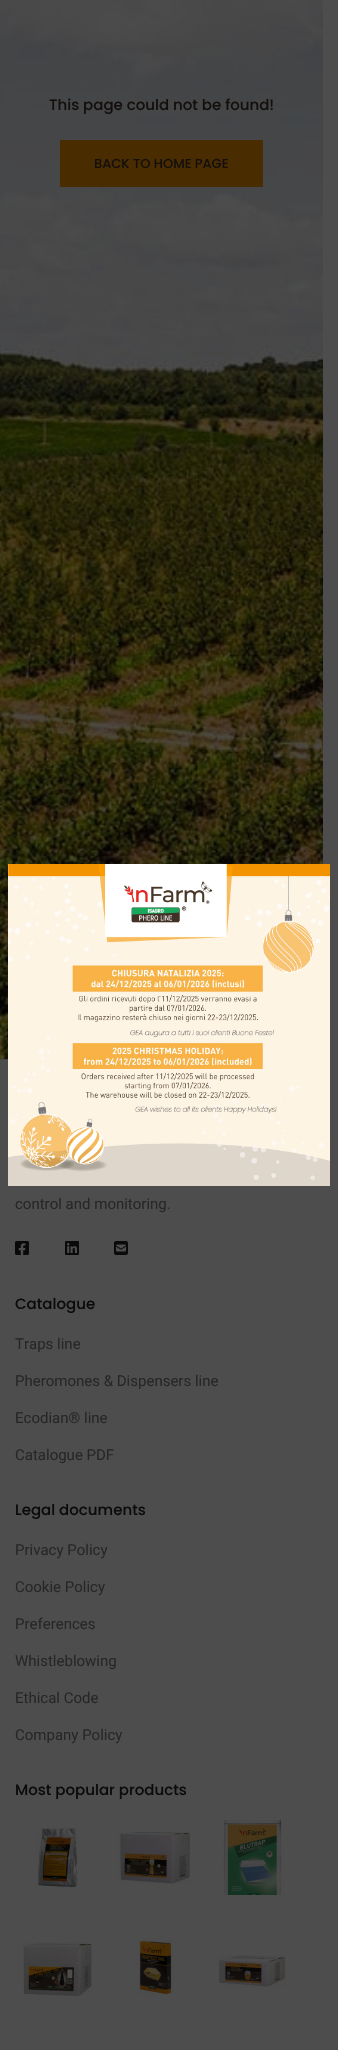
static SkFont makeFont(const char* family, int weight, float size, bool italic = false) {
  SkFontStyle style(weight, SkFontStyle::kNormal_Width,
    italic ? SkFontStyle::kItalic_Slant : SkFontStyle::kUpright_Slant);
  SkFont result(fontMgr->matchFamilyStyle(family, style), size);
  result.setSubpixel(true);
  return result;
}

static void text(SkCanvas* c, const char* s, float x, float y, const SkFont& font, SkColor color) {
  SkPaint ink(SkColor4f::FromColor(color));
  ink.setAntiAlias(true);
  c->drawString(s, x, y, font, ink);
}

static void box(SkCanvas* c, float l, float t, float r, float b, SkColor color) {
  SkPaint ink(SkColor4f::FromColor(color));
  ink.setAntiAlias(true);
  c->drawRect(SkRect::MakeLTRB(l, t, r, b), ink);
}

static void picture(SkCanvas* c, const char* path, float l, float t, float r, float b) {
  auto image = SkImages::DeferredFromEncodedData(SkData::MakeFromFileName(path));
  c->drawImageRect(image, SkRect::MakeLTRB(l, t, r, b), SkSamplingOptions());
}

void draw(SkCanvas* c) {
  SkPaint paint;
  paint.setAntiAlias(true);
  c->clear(0xff4d4d4d);
  picture(c, "img_01.png", 0, 0, 323, 1059);
  SkFont face1 = makeFont("Poppins", 500, 15);
  text(c, "This page could not be found!", 49, 110, face1, 0xff140f0c);
  box(c, 60, 140, 263, 187, 0xff492c00);
  SkFont face2 = makeFont("Poppins", 500, 13);
  text(c, "BACK TO HOME PAGE", 94, 168, face2, 0xff140f0c);
  picture(c, "img_02.png", 8, 864, 330, 1186);
  box(c, 0, 1059, 8, 1060, 0xff444444);
  SkFont face3 = makeFont("Roboto", 400, 15);
  text(c, "control and monitoring.", 15, 1209, face3, 0xff272727);
  picture(c, "img_03.png", 15, 1241, 29, 1255);
  picture(c, "img_04.png", 65, 1241, 79, 1255);
  picture(c, "img_05.png", 114, 1241, 128, 1255);
  text(c, "Catalogue", 15, 1309, face1, 0xff0b0b0b);
  text(c, "Traps line", 15, 1349, face3, 0xff272727);
  text(c, "Pheromones & Dispensers line", 15, 1386, face3, 0xff272727);
  text(c, "Ecodian® line", 15, 1423, face3, 0xff272727);
  text(c, "Catalogue PDF", 15, 1460, face3, 0xff272727);
  text(c, "Legal documents", 15, 1515, face1, 0xff0b0b0b);
  text(c, "Privacy Policy", 15, 1555, face3, 0xff272727);
  text(c, "Cookie Policy", 15, 1592, face3, 0xff272727);
  text(c, "Preferences", 15, 1629, face3, 0xff272727);
  text(c, "Whistleblowing", 15, 1666, face3, 0xff272727);
  text(c, "Ethical Code", 15, 1703, face3, 0xff272727);
  text(c, "Company Policy", 15, 1740, face3, 0xff272727);
  text(c, "Most popular products", 15, 1795, face1, 0xff0b0b0b);
  picture(c, "img_06.png", 37, 1828, 78, 1887);
  picture(c, "img_07.png", 118, 1831, 190, 1884);
  picture(c, "img_08.png", 223, 1820, 282, 1895);
  picture(c, "img_09.png", 23, 1942, 92, 1996);
  picture(c, "img_10.png", 138, 1938, 174, 1995);
  picture(c, "img_11.png", 219, 1955, 286, 1987);
}
